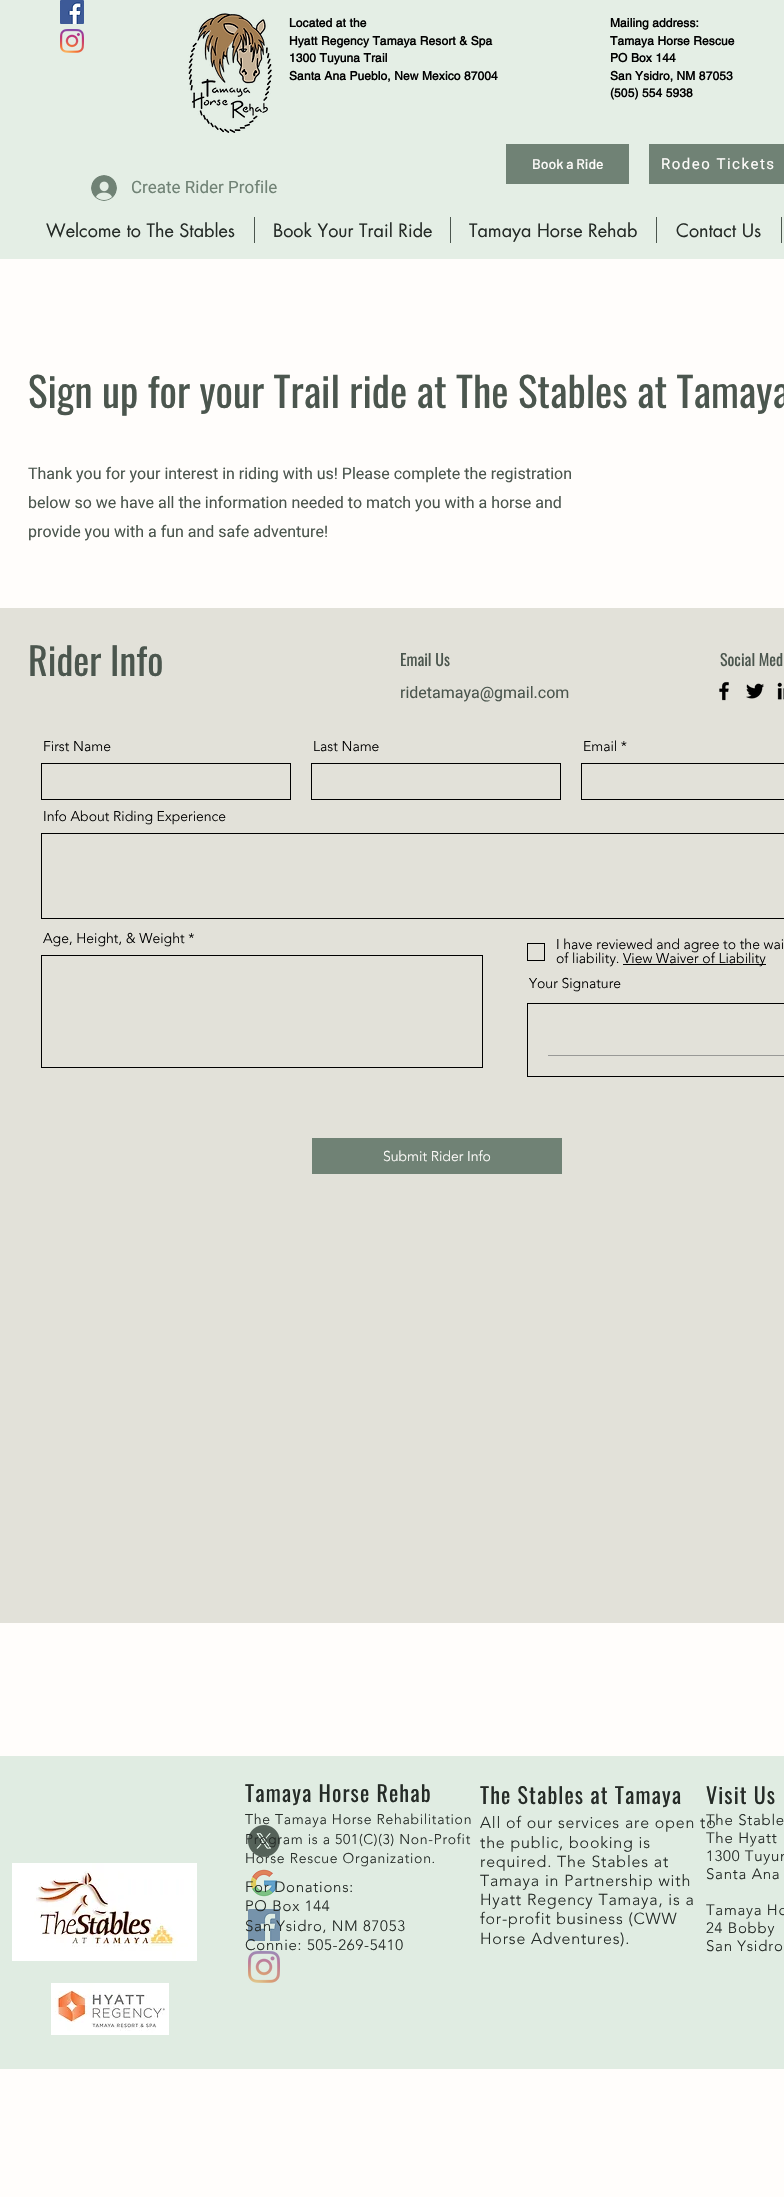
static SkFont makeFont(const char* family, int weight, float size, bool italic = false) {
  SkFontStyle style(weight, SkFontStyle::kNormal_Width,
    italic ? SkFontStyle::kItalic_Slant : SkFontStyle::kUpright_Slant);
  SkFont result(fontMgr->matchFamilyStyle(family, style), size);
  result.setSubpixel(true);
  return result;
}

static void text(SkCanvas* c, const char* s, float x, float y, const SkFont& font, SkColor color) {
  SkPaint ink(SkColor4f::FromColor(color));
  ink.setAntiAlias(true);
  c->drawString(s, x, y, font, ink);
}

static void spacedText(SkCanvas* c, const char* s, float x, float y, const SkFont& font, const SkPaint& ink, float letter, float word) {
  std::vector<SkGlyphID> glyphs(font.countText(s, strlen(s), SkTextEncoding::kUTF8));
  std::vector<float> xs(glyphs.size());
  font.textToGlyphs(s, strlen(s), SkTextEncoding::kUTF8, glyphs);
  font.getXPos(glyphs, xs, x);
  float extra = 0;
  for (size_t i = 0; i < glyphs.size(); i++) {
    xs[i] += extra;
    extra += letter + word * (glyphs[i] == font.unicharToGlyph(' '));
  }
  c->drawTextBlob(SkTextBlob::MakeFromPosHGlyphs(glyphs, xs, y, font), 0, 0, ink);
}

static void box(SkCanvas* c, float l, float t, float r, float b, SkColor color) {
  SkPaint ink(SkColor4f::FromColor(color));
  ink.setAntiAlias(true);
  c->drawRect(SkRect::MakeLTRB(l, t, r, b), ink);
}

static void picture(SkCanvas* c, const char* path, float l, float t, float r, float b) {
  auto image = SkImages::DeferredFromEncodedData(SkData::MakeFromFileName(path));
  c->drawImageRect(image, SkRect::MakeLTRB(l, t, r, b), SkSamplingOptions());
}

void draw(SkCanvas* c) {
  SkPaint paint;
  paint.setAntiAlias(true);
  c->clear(0xfffffdfb);
  box(c, 0, 0, 784, 259, 0xffe4eee5);
  picture(c, "img_01.png", 60, 0, 84, 24);
  picture(c, "img_02.png", 60, 29, 84, 53);
  picture(c, "img_03.png", 188, 13, 272, 133);
  SkFont face1 = makeFont("helvetica", 700, 12);
  paint.setColor(0xff000000);
  spacedText(c, "Located at the", 289, 27, face1, paint, 0.1f, 0);
  spacedText(c, "Hyatt Regency Tamaya Resort & Spa", 289, 45, face1, paint, 0.1f, 0);
  spacedText(c, "1300 Tuyuna Trail", 289, 62, face1, paint, 0.1f, 0);
  spacedText(c, "Santa Ana Pueblo, New Mexico 87004", 289, 80, face1, paint, 0.1f, 0);
  spacedText(c, "Mailing address:", 610, 27, face1, paint, 0.1f, 0);
  spacedText(c, "Tamaya Horse Rescue", 610, 45, face1, paint, 0.1f, 0);
  spacedText(c, "PO Box 144", 610, 62, face1, paint, 0.1f, 0);
  spacedText(c, "San Ysidro, NM 87053", 610, 80, face1, paint, 0.1f, 0);
  spacedText(c, "(505) 554 5938", 610, 97, face1, paint, 0.1f, 0);
  box(c, 506, 144, 629, 184, 0xff708275);
  SkFont face2 = makeFont("Barlow", 500, 14);
  text(c, "Book a Ride", 532, 169, face2, 0xfffffdfb);
  box(c, 649, 144, 784, 184, 0xff708275);
  SkFont face3 = makeFont("Roboto", 400, 15);
  paint.setColor(0xfffffdfb);
  spacedText(c, "Rodeo Tickets", 661, 169, face3, paint, 1.5f, 0);
  picture(c, "img_04.png", 91, 175, 117, 201);
  SkFont face4 = makeFont("Roboto", 400, 17);
  text(c, "Create Rider Profile", 131, 193, face4, 0xff708275);
  SkFont face5 = makeFont("futura", 400, 18);
  text(c, "Welcome to The Stables", 46, 237, face5, 0xff252b27);
  box(c, 254, 217, 255, 243, 0xff4b564e);
  text(c, "Book Your Trail Ride", 273, 237, face5, 0xff252b27);
  box(c, 450, 217, 451, 243, 0xff4b564e);
  text(c, "Tamaya Horse Rehab", 469, 237, face5, 0xff252b27);
  box(c, 656, 217, 657, 243, 0xff4b564e);
  text(c, "Contact Us", 676, 237, face5, 0xff252b27);
  box(c, 781, 217, 782, 243, 0xff4b564e);
  SkFont face6 = makeFont("Oswald", 400, 41);
  text(c, "Sign up for your Trail ride at The Stables at Tamaya", 28, 408, face6, 0xff4b564e);
  SkFont face7 = makeFont("Roboto", 400, 16);
  text(c, "Thank you for your interest in riding with us! Please complete the registration", 28, 479, face7, 0xff4b564e);
  text(c, "below so we have all the information needed to match you with a horse and", 28, 508, face7, 0xff4b564e);
  text(c, "provide you with a fun and safe adventure!", 28, 537, face7, 0xff4b564e);
  box(c, 0, 608, 784, 1623, 0xffe2e1d9);
  SkFont face8 = makeFont("Oswald", 400, 38);
  text(c, "Rider Info", 28, 676, face8, 0xff4b564e);
  SkFont face9 = makeFont("Oswald", 400, 16);
  text(c, "Email Us", 400, 666, face9, 0xff4b564e);
  text(c, "Social Med", 720, 666, face9, 0xff4b564e);
  text(c, "ridetamaya@gmail.com", 400, 698, face7, 0xff4b564e);
  picture(c, "img_05.png", 719, 681, 729, 701);
  picture(c, "img_06.png", 746, 683, 764, 699);
  picture(c, "img_07.png", 777, 682, 784, 700);
  SkFont face10 = makeFont("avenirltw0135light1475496", 300, 14);
  text(c, "First Name", 43, 751, face10, 0xff000000);
  paint.setStyle(SkPaint::kStroke_Style);
  paint.setStrokeWidth(1);
  paint.setColor(0xff000000);
  c->drawRect(SkRect::MakeLTRB(41.5f, 763.5f, 290.5f, 799.5f), paint);
  text(c, "Last Name", 313, 751, face10, 0xff000000);
  c->drawRect(SkRect::MakeLTRB(311.5f, 763.5f, 560.5f, 799.5f), paint);
  text(c, "Email *", 583, 751, face10, 0xff000000);
  c->drawRect(SkRect::MakeLTRB(581.5f, 763.5f, 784.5f, 799.5f), paint);
  text(c, "Info About Riding Experience", 43, 821, face10, 0xff000000);
  c->drawRect(SkRect::MakeLTRB(41.5f, 833.5f, 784.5f, 918.5f), paint);
  text(c, "Age, Height, & Weight *", 43, 943, face10, 0xff000000);
  c->drawRect(SkRect::MakeLTRB(41.5f, 955.5f, 482.5f, 1067.5f), paint);
  c->drawRect(SkRect::MakeLTRB(527.5f, 943.5f, 544.5f, 960.5f), paint);
  text(c, "I have reviewed and agree to the wai", 556, 949, face10, 0xff000000);
  text(c, "of liability.", 556, 963, face10, 0xff000000);
  box(c, 623, 964, 766, 965, 0xff000000);
  text(c, "View Waiver of Liability", 623, 963, face10, 0xff000000);
  text(c, "Your Signature", 529, 988, face10, 0xff000000);
  c->drawRect(SkRect::MakeLTRB(527.5f, 1003.5f, 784.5f, 1076.5f), paint);
  box(c, 548, 1055, 784, 1056, 0xff999997);
  box(c, 312, 1138, 562, 1174, 0xff708275);
  text(c, "Submit Rider Info", 383, 1161, face10, 0xfffffdfb);
  box(c, 0, 1756, 784, 2069, 0xffe0ece2);
  picture(c, "img_08.png", 12, 1863, 197, 1961);
  picture(c, "img_09.png", 248, 1825, 280, 1857);
  picture(c, "img_10.png", 250, 1869, 278, 1897);
  picture(c, "img_11.png", 248, 1909, 280, 1941);
  picture(c, "img_12.png", 248, 1951, 280, 1983);
  picture(c, "img_13.png", 51, 1983, 169, 2035);
  SkFont face11 = makeFont("Oswald", 400, 22);
  paint.setStyle(SkPaint::kFill_Style);
  paint.setColor(0xff252b27);
  spacedText(c, "Tamaya Horse Rehab", 245, 1802, face11, paint, 1.1f, 0);
  spacedText(c, "The Tamaya Horse Rehabilitation", 245, 1824, face10, paint, 0.7f, 0);
  spacedText(c, "Program is a 501(C)(3) Non-Profit", 245, 1844, face10, paint, 0.7f, 0);
  spacedText(c, "Horse Rescue Organization.", 245, 1863, face10, paint, 0.7f, 0);
  SkFont face12 = makeFont("avenirltw0135light1475496", 300, 15);
  spacedText(c, "For Donations:", 245, 1892, face12, paint, 0.75f, 0);
  spacedText(c, "PO Box 144", 245, 1911, face12, paint, 0.75f, 0);
  spacedText(c, "San Ysidro, NM 87053", 245, 1931, face12, paint, 0.75f, 0);
  spacedText(c, "Connie: 505-269-5410", 245, 1950, face12, paint, 0.75f, 0);
  spacedText(c, "The Stables at Tamaya", 480, 1804, face11, paint, 1.1f, 0);
  SkFont face13 = makeFont("avenirltw0135light1475496", 300, 16);
  spacedText(c, "All of our services are open to", 480, 1828, face13, paint, 0.8f, 0);
  spacedText(c, "the public, booking is", 480, 1848, face13, paint, 0.8f, 0);
  spacedText(c, "required. The Stables at", 480, 1867, face13, paint, 0.8f, 0);
  spacedText(c, "Tamaya in Partnership with", 480, 1886, face13, paint, 0.8f, 0);
  spacedText(c, "Hyatt Regency Tamaya, is a", 480, 1905, face13, paint, 0.8f, 0);
  spacedText(c, "for-profit business (CWW", 480, 1924, face13, paint, 0.8f, 0);
  spacedText(c, "Horse Adventures).", 480, 1944, face13, paint, 0.8f, 0);
  spacedText(c, "Visit Us", 706, 1804, face11, paint, 1.1f, 0);
  spacedText(c, "The Stable", 706, 1825, face12, paint, 0.75f, 0);
  spacedText(c, "The Hyatt", 706, 1843, face12, paint, 0.75f, 0);
  spacedText(c, "1300 Tuyun", 706, 1861, face12, paint, 0.75f, 0);
  spacedText(c, "Santa Ana", 706, 1879, face12, paint, 0.75f, 0);
  spacedText(c, "Tamaya Ho", 706, 1915, face12, paint, 0.75f, 0);
  spacedText(c, "24 Bobby", 706, 1933, face12, paint, 0.75f, 0);
  spacedText(c, "San Ysidro", 706, 1951, face12, paint, 0.75f, 0);
}
